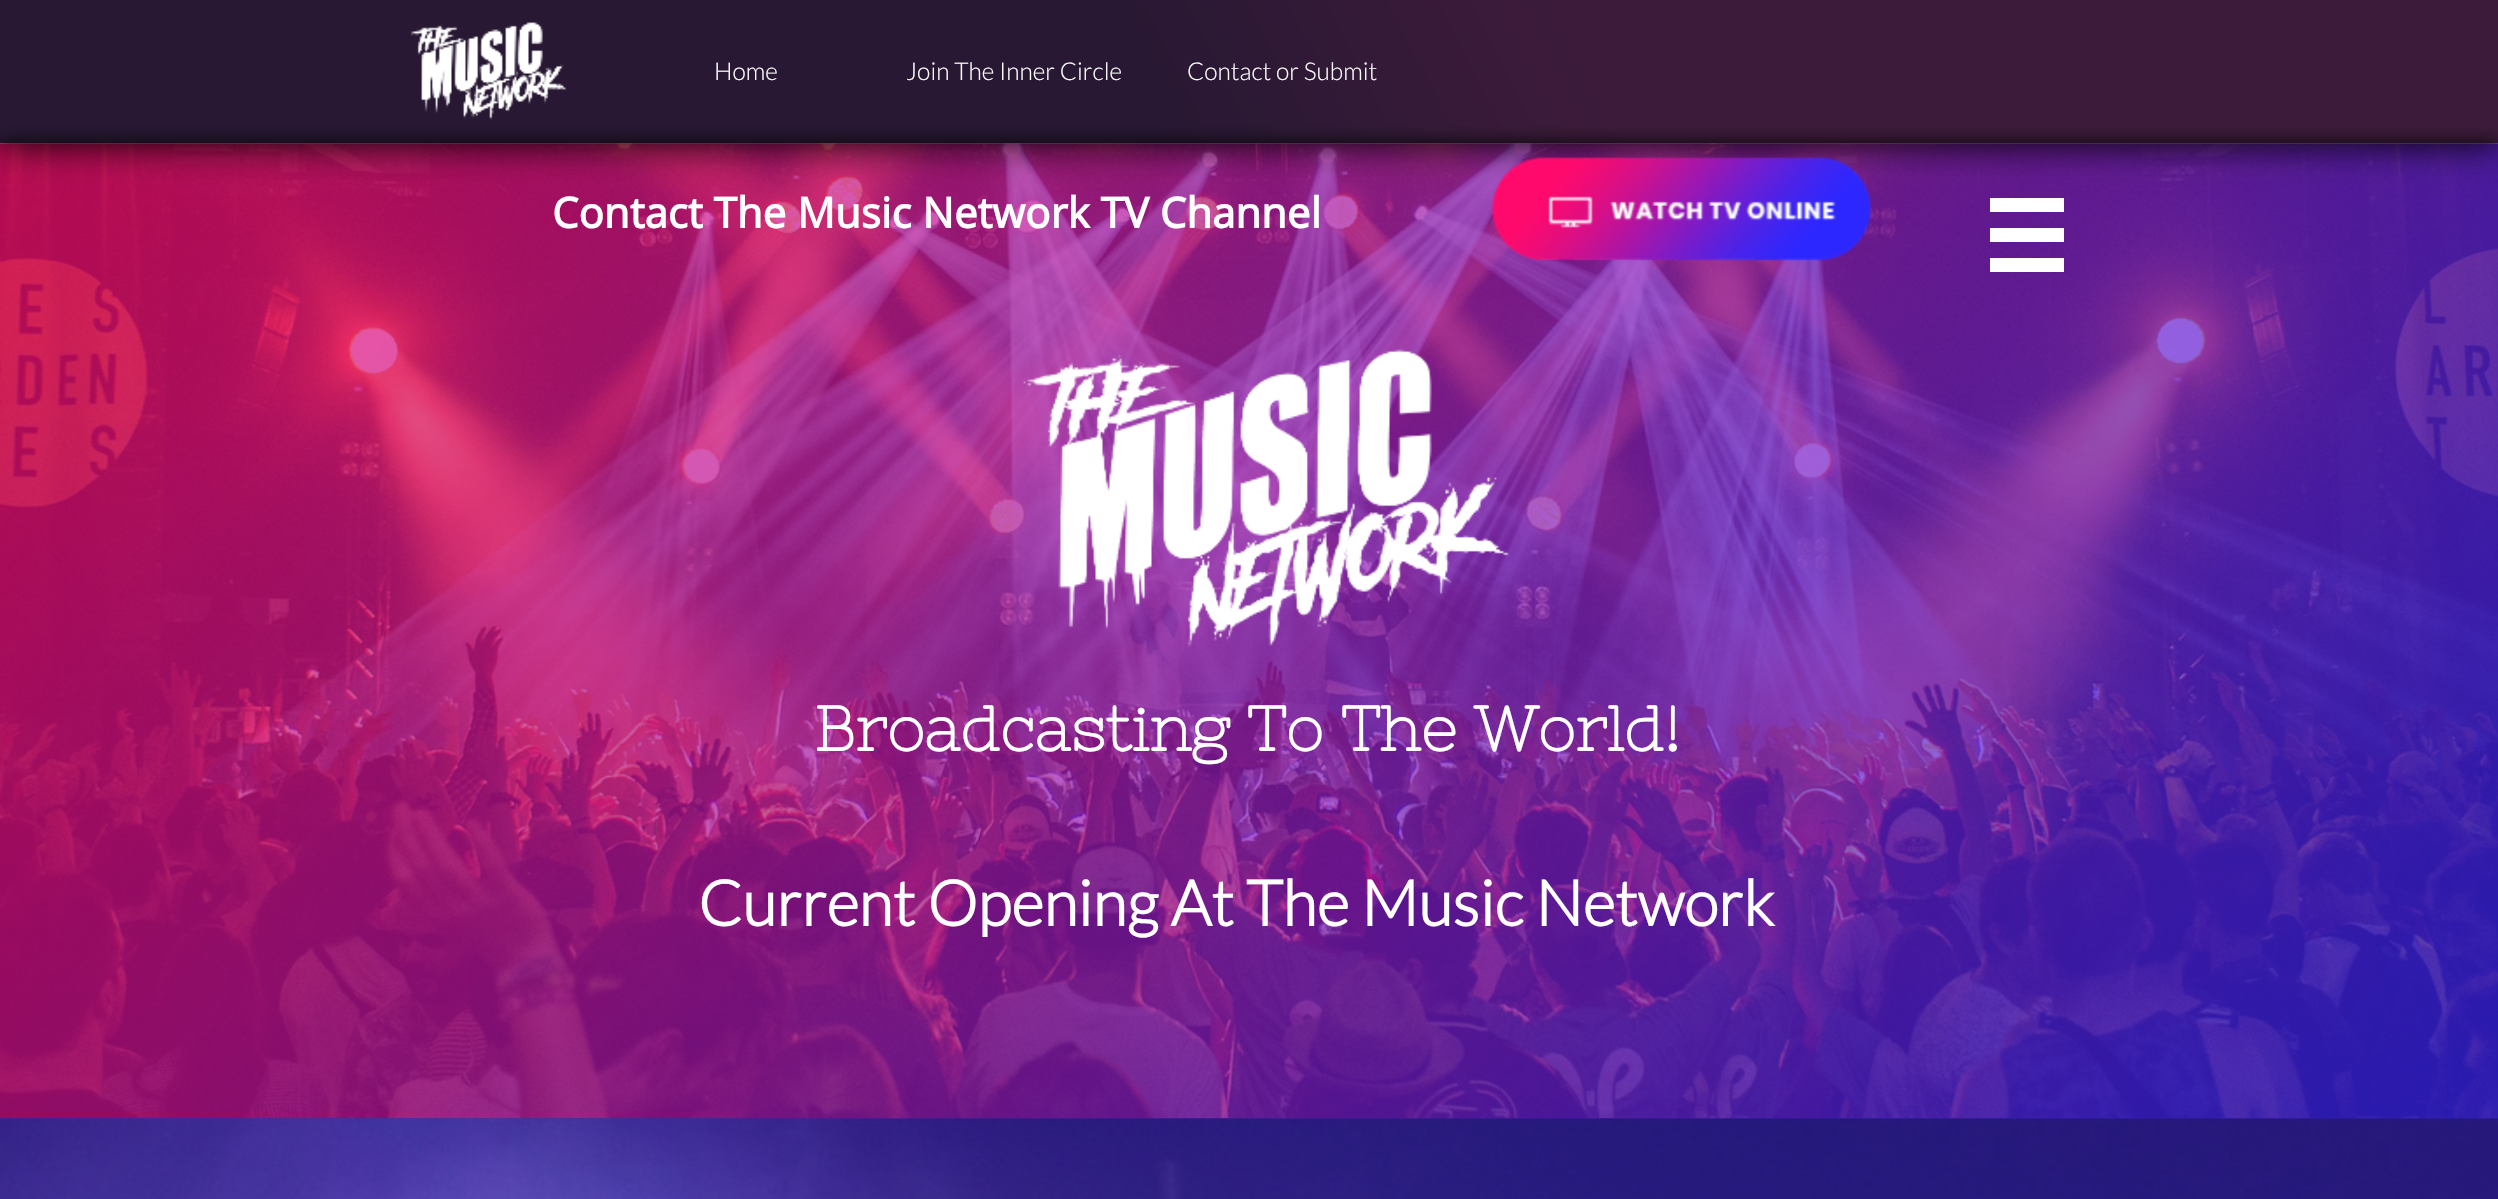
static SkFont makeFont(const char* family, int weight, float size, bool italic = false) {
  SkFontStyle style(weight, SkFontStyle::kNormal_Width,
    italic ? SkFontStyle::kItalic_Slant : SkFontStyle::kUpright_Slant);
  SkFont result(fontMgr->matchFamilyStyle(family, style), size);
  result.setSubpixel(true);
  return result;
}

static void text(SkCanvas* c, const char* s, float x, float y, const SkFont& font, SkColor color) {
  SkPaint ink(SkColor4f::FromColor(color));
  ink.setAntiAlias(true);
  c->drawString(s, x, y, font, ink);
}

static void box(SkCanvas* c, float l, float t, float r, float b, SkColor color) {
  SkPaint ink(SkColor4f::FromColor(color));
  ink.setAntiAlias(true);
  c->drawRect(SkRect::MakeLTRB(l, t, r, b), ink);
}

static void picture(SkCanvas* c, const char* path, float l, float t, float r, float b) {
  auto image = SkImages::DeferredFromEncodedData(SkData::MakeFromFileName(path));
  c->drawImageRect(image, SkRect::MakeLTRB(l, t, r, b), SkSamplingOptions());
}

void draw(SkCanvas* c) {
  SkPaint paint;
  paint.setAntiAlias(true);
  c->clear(0xffffffff);
  picture(c, "img_01.png", 0, 0, 2498, 144);
  picture(c, "img_03.png", 0, 143, 2498, 1119);
  c->save();
  c->clipPath(SkPathBuilder(SkPathFillType::kEvenOdd).moveTo(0, 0).lineTo(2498, 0).lineTo(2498, 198).lineTo(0, 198).close().moveTo(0, 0).lineTo(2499, 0).lineTo(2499, 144).lineTo(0, 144).close().detach(), true);
  paint.setColor(0xff000000);
  paint.setMaskFilter(SkMaskFilter::MakeBlur(kNormal_SkBlurStyle, 17.5f));
  c->drawRect(SkRect::MakeLTRB(0, 0, 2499, 144), paint);
  paint.setMaskFilter(nullptr);
  c->restore();
  picture(c, "img_02.png", 410, 22, 567, 120);
  SkFont face1 = makeFont("Lato", 300, 24.5f);
  text(c, "Home", 714, 80, face1, 0xffffffff);
  text(c, "Join The Inner Circle", 906, 80, face1, 0xffffffff);
  text(c, "Contact or Submit", 1187, 80, face1, 0xffffffff);
  c->save();
  c->clipRect(SkRect::MakeLTRB(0, 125, 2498, 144));
  paint.setMaskFilter(SkMaskFilter::MakeBlur(kNormal_SkBlurStyle, 9.5f));
  c->drawRect(SkRect::MakeLTRB(0, 144, 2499, 1120), paint);
  paint.setMaskFilter(nullptr);
  c->restore();
  SkFont face2 = makeFont("Open Sans", 700, 42);
  text(c, "Contact The Music Network TV Channel", 552, 228, face2, 0xffffffff);
  picture(c, "img_04.png", 1491, 156, 1872, 261);
  paint.setColor(0xffffffff);
  c->drawPath(SkPathBuilder().moveTo(1990, 258).lineTo(2064, 258).lineTo(2064, 272).lineTo(1990, 272).close().moveTo(1990, 228).lineTo(2064, 228).lineTo(2064, 242).lineTo(1990, 242).close().moveTo(1990, 198).lineTo(2064, 198).lineTo(2064, 212).lineTo(1990, 212).close().detach(), paint);
  picture(c, "img_05.png", 1023, 349, 1509, 646);
  SkFont face3 = makeFont("Nixie One", 700, 63);
  text(c, "Broadcasting To The World!", 814, 751, face3, 0xffffffff);
  SkFont face4 = makeFont("Lato", 700, 63);
  text(c, "Current Opening At The Music Network", 698, 926, face4, 0xffffffff);
  picture(c, "img_06.png", 0, 1118, 2498, 1199);
  box(c, 0, 1118, 2498, 1199, 0x963420c8);
}
